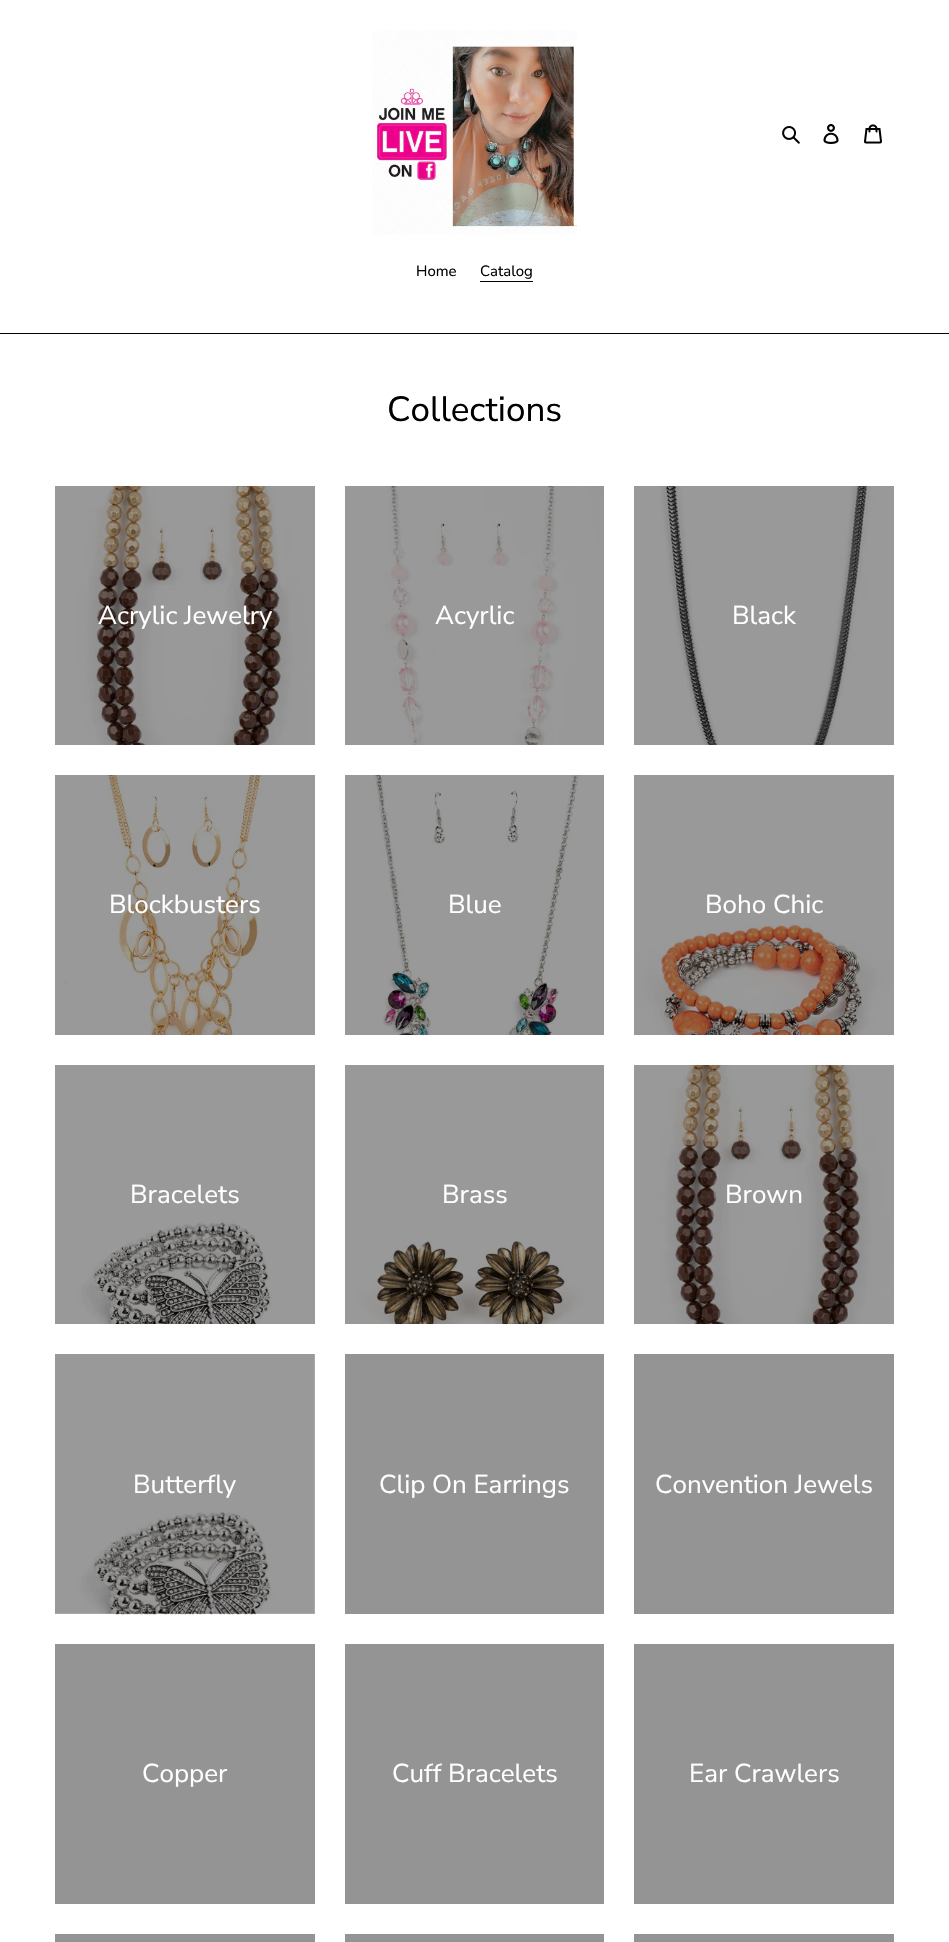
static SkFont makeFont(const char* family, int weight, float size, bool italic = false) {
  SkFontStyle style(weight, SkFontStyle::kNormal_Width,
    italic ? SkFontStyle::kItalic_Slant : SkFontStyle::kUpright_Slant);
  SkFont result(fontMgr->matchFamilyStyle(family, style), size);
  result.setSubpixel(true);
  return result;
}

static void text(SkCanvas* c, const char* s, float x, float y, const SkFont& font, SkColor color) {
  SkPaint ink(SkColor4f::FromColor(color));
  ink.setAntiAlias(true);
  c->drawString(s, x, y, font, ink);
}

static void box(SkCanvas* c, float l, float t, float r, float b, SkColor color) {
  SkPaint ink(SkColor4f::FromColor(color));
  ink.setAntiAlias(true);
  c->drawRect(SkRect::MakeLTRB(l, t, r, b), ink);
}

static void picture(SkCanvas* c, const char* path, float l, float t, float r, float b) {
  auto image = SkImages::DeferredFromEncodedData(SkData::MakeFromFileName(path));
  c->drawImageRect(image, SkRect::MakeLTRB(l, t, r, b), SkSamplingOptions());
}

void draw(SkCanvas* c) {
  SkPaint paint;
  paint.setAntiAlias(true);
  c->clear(0xffffffff);
  picture(c, "img_01.png", 372, 30, 577, 235);
  picture(c, "img_02.png", 782, 126, 800, 144);
  picture(c, "img_03.png", 823, 124, 839, 144);
  picture(c, "img_04.png", 864, 124, 882, 144);
  box(c, 0, 333, 949, 334, 0xff000000);
  SkFont face1 = makeFont("Nunito Sans", 400, 15);
  text(c, "Home", 416, 276, face1, 0xff000000);
  text(c, "Catalog", 480, 276, face1, 0xff000000);
  box(c, 480, 281, 533, 282, 0xff000000);
  SkFont face2 = makeFont("Nunito Sans", 400, 35);
  text(c, "Collections", 387, 421, face2, 0xff000000);
  picture(c, "img_05.png", 55, 486, 315, 745);
  SkFont face3 = makeFont("Nunito Sans", 400, 26);
  text(c, "Acrylic Jewelry", 98, 624, face3, 0xffffffff);
  picture(c, "img_06.png", 345, 486, 604, 745);
  text(c, "Acyrlic", 435, 624, face3, 0xffffffff);
  picture(c, "img_07.png", 634, 486, 894, 745);
  text(c, "Black", 732, 624, face3, 0xffffffff);
  picture(c, "img_08.png", 55, 775, 315, 1035);
  text(c, "Blockbusters", 109, 913, face3, 0xffffffff);
  picture(c, "img_09.png", 345, 775, 604, 1035);
  text(c, "Blue", 448, 913, face3, 0xffffffff);
  picture(c, "img_10.png", 634, 775, 894, 1035);
  text(c, "Boho Chic", 705, 913, face3, 0xffffffff);
  picture(c, "img_11.png", 55, 1065, 315, 1324);
  text(c, "Bracelets", 130, 1203, face3, 0xffffffff);
  picture(c, "img_12.png", 345, 1065, 604, 1324);
  text(c, "Brass", 442, 1203, face3, 0xffffffff);
  picture(c, "img_05.png", 634, 1065, 894, 1324);
  text(c, "Brown", 725, 1203, face3, 0xffffffff);
  picture(c, "img_13.png", 55, 1354, 315, 1615);
  text(c, "Butterfly", 133, 1493, face3, 0xffffffff);
  box(c, 345, 1354, 604, 1614, 0xff949494);
  text(c, "Clip On Earrings", 379, 1493, face3, 0xffffffff);
  box(c, 634, 1354, 894, 1614, 0xff949494);
  text(c, "Convention Jewels", 655, 1493, face3, 0xffffffff);
  box(c, 55, 1644, 315, 1904, 0xff949494);
  text(c, "Copper", 142, 1782, face3, 0xffffffff);
  box(c, 345, 1644, 604, 1904, 0xff949494);
  text(c, "Cuff Bracelets", 392, 1782, face3, 0xffffffff);
  box(c, 634, 1644, 894, 1904, 0xff949494);
  text(c, "Ear Crawlers", 689, 1782, face3, 0xffffffff);
  box(c, 55, 1934, 315, 1942, 0xff949494);
  box(c, 345, 1934, 604, 1942, 0xff949494);
  box(c, 634, 1934, 894, 1942, 0xff949494);
}
